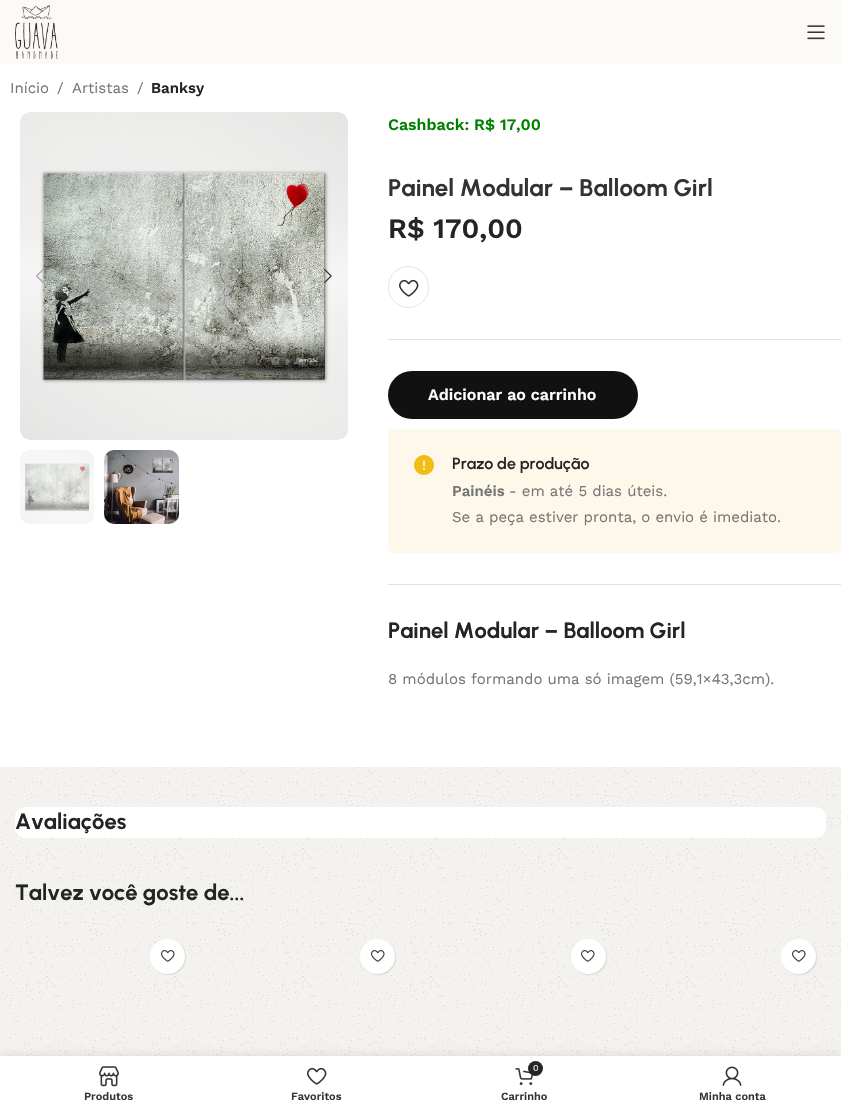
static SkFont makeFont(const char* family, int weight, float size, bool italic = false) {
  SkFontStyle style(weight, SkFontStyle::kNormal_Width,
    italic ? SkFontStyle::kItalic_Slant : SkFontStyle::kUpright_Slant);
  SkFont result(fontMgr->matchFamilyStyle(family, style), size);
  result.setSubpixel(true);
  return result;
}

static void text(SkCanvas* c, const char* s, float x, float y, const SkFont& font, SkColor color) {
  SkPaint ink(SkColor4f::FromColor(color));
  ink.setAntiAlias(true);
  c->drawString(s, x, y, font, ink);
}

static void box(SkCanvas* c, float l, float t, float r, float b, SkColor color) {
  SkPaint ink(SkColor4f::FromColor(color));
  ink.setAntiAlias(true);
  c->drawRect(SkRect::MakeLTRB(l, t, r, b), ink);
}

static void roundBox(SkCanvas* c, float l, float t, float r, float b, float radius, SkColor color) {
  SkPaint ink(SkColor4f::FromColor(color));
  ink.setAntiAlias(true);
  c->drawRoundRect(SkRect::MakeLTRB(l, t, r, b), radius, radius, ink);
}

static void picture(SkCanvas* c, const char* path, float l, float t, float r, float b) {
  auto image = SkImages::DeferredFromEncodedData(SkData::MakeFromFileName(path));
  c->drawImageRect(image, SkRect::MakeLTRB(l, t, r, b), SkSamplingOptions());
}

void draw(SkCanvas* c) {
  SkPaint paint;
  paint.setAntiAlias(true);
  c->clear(0xffffffff);
  box(c, 0, 0, 841, 64, 0xfffbfaf7);
  picture(c, "img_01.png", 15, 5, 58, 59);
  picture(c, "img_02.png", 807, 25, 825, 40);
  picture(c, "img_03.png", 0, 767, 841, 1056);
  SkFont face1 = makeFont("Work Sans", 400, 15);
  text(c, "Início", 10, 93, face1, 0xff767676);
  text(c, "/", 57, 93, face1, 0xff767676);
  text(c, "Artistas", 72, 93, face1, 0xff767676);
  text(c, "/", 137, 93, face1, 0xff767676);
  SkFont face2 = makeFont("Work Sans", 600, 15);
  text(c, "Banksy", 151, 93, face2, 0xff242424);
  picture(c, "img_04.png", 20, 112, 348, 440);
  picture(c, "img_05.png", 36, 269, 44, 283);
  picture(c, "img_06.png", 324, 268, 332, 284);
  picture(c, "img_07.png", 20, 450, 94, 524);
  picture(c, "img_08.png", 104, 450, 179, 524);
  SkFont face3 = makeFont("Work Sans", 600, 16);
  text(c, "Cashback: R$ 17,00", 388, 130, face3, 0xff008000);
  SkFont face4 = makeFont("Urbanist", 700, 24);
  text(c, "Painel Modular – Balloom Girl", 388, 196, face4, 0xff333333);
  SkFont face5 = makeFont("Work Sans", 600, 28);
  text(c, "R$ 170,00", 388, 238, face5, 0xff242424);
  paint.setStyle(SkPaint::kStroke_Style);
  paint.setStrokeWidth(1);
  paint.setColor(0xffe2e2e2);
  c->drawRoundRect(SkRect::MakeLTRB(388.5f, 266.5f, 428.5f, 307.5f), 20, 20, paint);
  picture(c, "img_09.png", 399, 279, 419, 297);
  box(c, 388, 339, 841, 340, 0xffe2e2e2);
  roundBox(c, 388, 371, 638, 419, 24, 0xff111111);
  text(c, "Adicionar ao carrinho", 428, 400, face3, 0xffffffff);
  roundBox(c, 388, 429, 841, 553, 6, 0xfffdf8ea);
  picture(c, "img_10.png", 414, 455, 434, 475);
  SkFont face6 = makeFont("Urbanist", 600, 16);
  text(c, "Prazo de produção", 452, 469, face6, 0xff242424);
  text(c, "Painéis", 452, 496, face2, 0xff767676);
  text(c, "- em até 5 dias úteis.", 509, 496, face1, 0xff767676);
  text(c, "Se a peça estiver pronta, o envio é imediato.", 452, 522, face1, 0xff767676);
  box(c, 388, 584, 841, 585, 0xffe2e2e2);
  SkFont face7 = makeFont("Urbanist", 700, 22);
  text(c, "Painel Modular – Balloom Girl", 388, 638, face7, 0xff242424);
  text(c, "8 módulos formando uma só imagem (59,1×43,3cm).", 388, 684, face1, 0xff767676);
  roundBox(c, 15, 807, 826, 838, 10, 0xffffffff);
  text(c, "Avaliações", 15, 829, face7, 0xff242424);
  text(c, "Talvez você goste de...", 15, 900, face7, 0xff242424);
  paint.setStyle(SkPaint::kFill_Style);
  paint.setColor(0x1a000000);
  paint.setMaskFilter(SkMaskFilter::MakeBlur(kNormal_SkBlurStyle, 0.5f));
  c->drawRoundRect(SkRect::MakeLTRB(151, 940, 186, 975), 17.5f, 17.5f, paint);
  paint.setMaskFilter(nullptr);
  paint.setColor(0xffffffff);
  c->drawCircle(167.5f, 956.5f, 17.5f, paint);
  picture(c, "img_11.png", 161, 950, 175, 962);
  paint.setColor(0x1a000000);
  paint.setMaskFilter(SkMaskFilter::MakeBlur(kNormal_SkBlurStyle, 0.5f));
  c->drawRoundRect(SkRect::MakeLTRB(361, 940, 396, 975), 17.5f, 17.5f, paint);
  paint.setMaskFilter(nullptr);
  paint.setColor(0xffffffff);
  c->drawCircle(377.5f, 956.5f, 17.5f, paint);
  picture(c, "img_11.png", 371, 950, 385, 962);
  paint.setColor(0x1a000000);
  paint.setMaskFilter(SkMaskFilter::MakeBlur(kNormal_SkBlurStyle, 0.5f));
  c->drawRoundRect(SkRect::MakeLTRB(572, 940, 607, 975), 17.5f, 17.5f, paint);
  paint.setMaskFilter(nullptr);
  paint.setColor(0xffffffff);
  c->drawCircle(588.5f, 956.5f, 17.5f, paint);
  picture(c, "img_11.png", 581, 950, 595, 962);
  paint.setColor(0x1a000000);
  paint.setMaskFilter(SkMaskFilter::MakeBlur(kNormal_SkBlurStyle, 0.5f));
  c->drawRoundRect(SkRect::MakeLTRB(782, 940, 817, 975), 17.5f, 17.5f, paint);
  paint.setMaskFilter(nullptr);
  paint.setColor(0xffffffff);
  c->drawCircle(798.5f, 956.5f, 17.5f, paint);
  picture(c, "img_11.png", 792, 950, 806, 962);
  paint.setColor(0x1f000000);
  paint.setMaskFilter(SkMaskFilter::MakeBlur(kNormal_SkBlurStyle, 4.5f));
  c->drawRect(SkRect::MakeLTRB(0, 1056, 841, 1111), paint);
  paint.setMaskFilter(nullptr);
  box(c, 0, 1056, 841, 1111, 0xffffffff);
  picture(c, "img_12.png", 99, 1066, 119, 1087);
  SkFont face8 = makeFont("Work Sans", 600, 11);
  text(c, "Produtos", 84, 1100, face8, 0xff333333);
  picture(c, "img_09.png", 307, 1067, 327, 1085);
  text(c, "Favoritos", 291, 1100, face8, 0xff333333);
  picture(c, "img_13.png", 515, 1068, 534, 1085);
  paint.setColor(0xff262626);
  c->drawCircle(535.5f, 1068.5f, 7.5f, paint);
  SkFont face9 = makeFont("Work Sans", 400, 9);
  text(c, "0", 533, 1071, face9, 0xffffffff);
  text(c, "Carrinho", 501, 1100, face8, 0xff333333);
  picture(c, "img_14.png", 722, 1066, 742, 1086);
  text(c, "Minha conta", 699, 1100, face8, 0xff333333);
}
